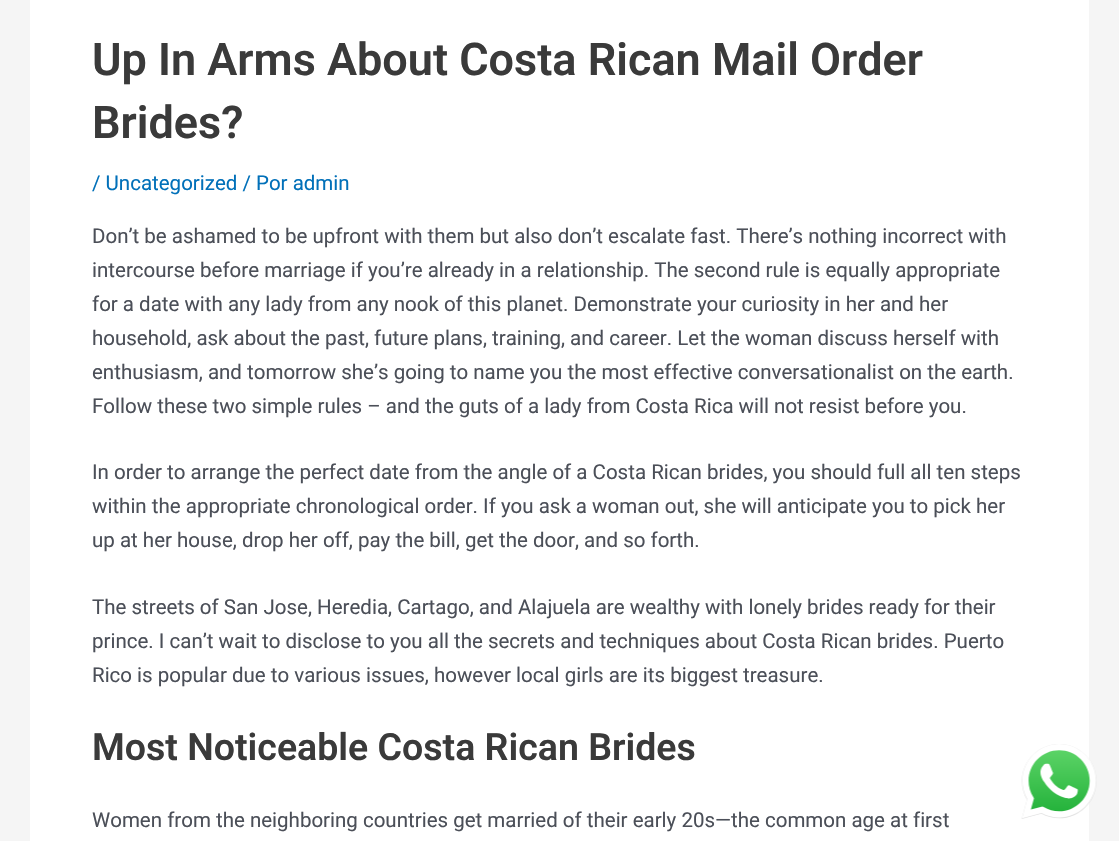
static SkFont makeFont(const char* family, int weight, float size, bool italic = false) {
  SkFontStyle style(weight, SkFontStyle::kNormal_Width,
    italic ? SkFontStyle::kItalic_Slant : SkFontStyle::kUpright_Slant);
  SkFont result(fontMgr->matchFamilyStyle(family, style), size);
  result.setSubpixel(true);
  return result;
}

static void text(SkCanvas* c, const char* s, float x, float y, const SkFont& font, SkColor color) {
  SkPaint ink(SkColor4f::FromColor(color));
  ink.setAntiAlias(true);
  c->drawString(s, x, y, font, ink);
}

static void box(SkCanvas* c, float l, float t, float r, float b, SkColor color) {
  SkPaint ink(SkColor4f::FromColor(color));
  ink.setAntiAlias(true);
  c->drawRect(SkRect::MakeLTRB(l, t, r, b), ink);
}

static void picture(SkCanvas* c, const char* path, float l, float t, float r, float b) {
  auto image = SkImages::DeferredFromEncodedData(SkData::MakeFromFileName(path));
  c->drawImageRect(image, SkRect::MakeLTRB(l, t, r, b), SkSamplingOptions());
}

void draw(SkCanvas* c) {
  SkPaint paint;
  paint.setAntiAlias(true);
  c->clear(0xfff5f5f5);
  box(c, 30, 0, 1089, 841, 0xffffffff);
  SkFont face1 = makeFont("Roboto", 600, 45);
  text(c, "Up In Arms About Costa Rican Mail Order", 92, 75, face1, 0xff3a3a3a);
  text(c, "Brides?", 92, 138, face1, 0xff3a3a3a);
  SkFont face2 = makeFont("Roboto", 400, 20.5f);
  text(c, "/ Uncategorized / Por admin", 92, 190, face2, 0xff0170b9);
  text(c, "Don’t be ashamed to be upfront with them but also don’t escalate fast. There’s nothing incorrect with", 92, 243, face2, 0xff4b4f58);
  text(c, "intercourse before marriage if you’re already in a relationship. The second rule is equally appropriate", 92, 277, face2, 0xff4b4f58);
  text(c, "for a date with any lady from any nook of this planet. Demonstrate your curiosity in her and her", 92, 311, face2, 0xff4b4f58);
  text(c, "household, ask about the past, future plans, training, and career. Let the woman discuss herself with", 92, 345, face2, 0xff4b4f58);
  text(c, "enthusiasm, and tomorrow she’s going to name you the most effective conversationalist on the earth.", 92, 379, face2, 0xff4b4f58);
  text(c, "Follow these two simple rules – and the guts of a lady from Costa Rica will not resist before you.", 92, 413, face2, 0xff4b4f58);
  text(c, "In order to arrange the perfect date from the angle of a Costa Rican brides, you should full all ten steps", 92, 479, face2, 0xff4b4f58);
  text(c, "within the appropriate chronological order. If you ask a woman out, she will anticipate you to pick her", 92, 513, face2, 0xff4b4f58);
  text(c, "up at her house, drop her off, pay the bill, get the door, and so forth.", 92, 547, face2, 0xff4b4f58);
  text(c, "The streets of San Jose, Heredia, Cartago, and Alajuela are wealthy with lonely brides ready for their", 92, 614, face2, 0xff4b4f58);
  text(c, "prince. I can’t wait to disclose to you all the secrets and techniques about Costa Rican brides. Puerto", 92, 648, face2, 0xff4b4f58);
  text(c, "Rico is popular due to various issues, however local girls are its biggest treasure.", 92, 682, face2, 0xff4b4f58);
  SkFont face3 = makeFont("Roboto", 600, 37.5f);
  text(c, "Most Noticeable Costa Rican Brides", 92, 760, face3, 0xff3a3a3a);
  text(c, "Women from the neighboring countries get married of their early 20s—the common age at first", 92, 827, face2, 0xff4b4f58);
  picture(c, "img_01.png", 1021, 744, 1097, 819);
}
